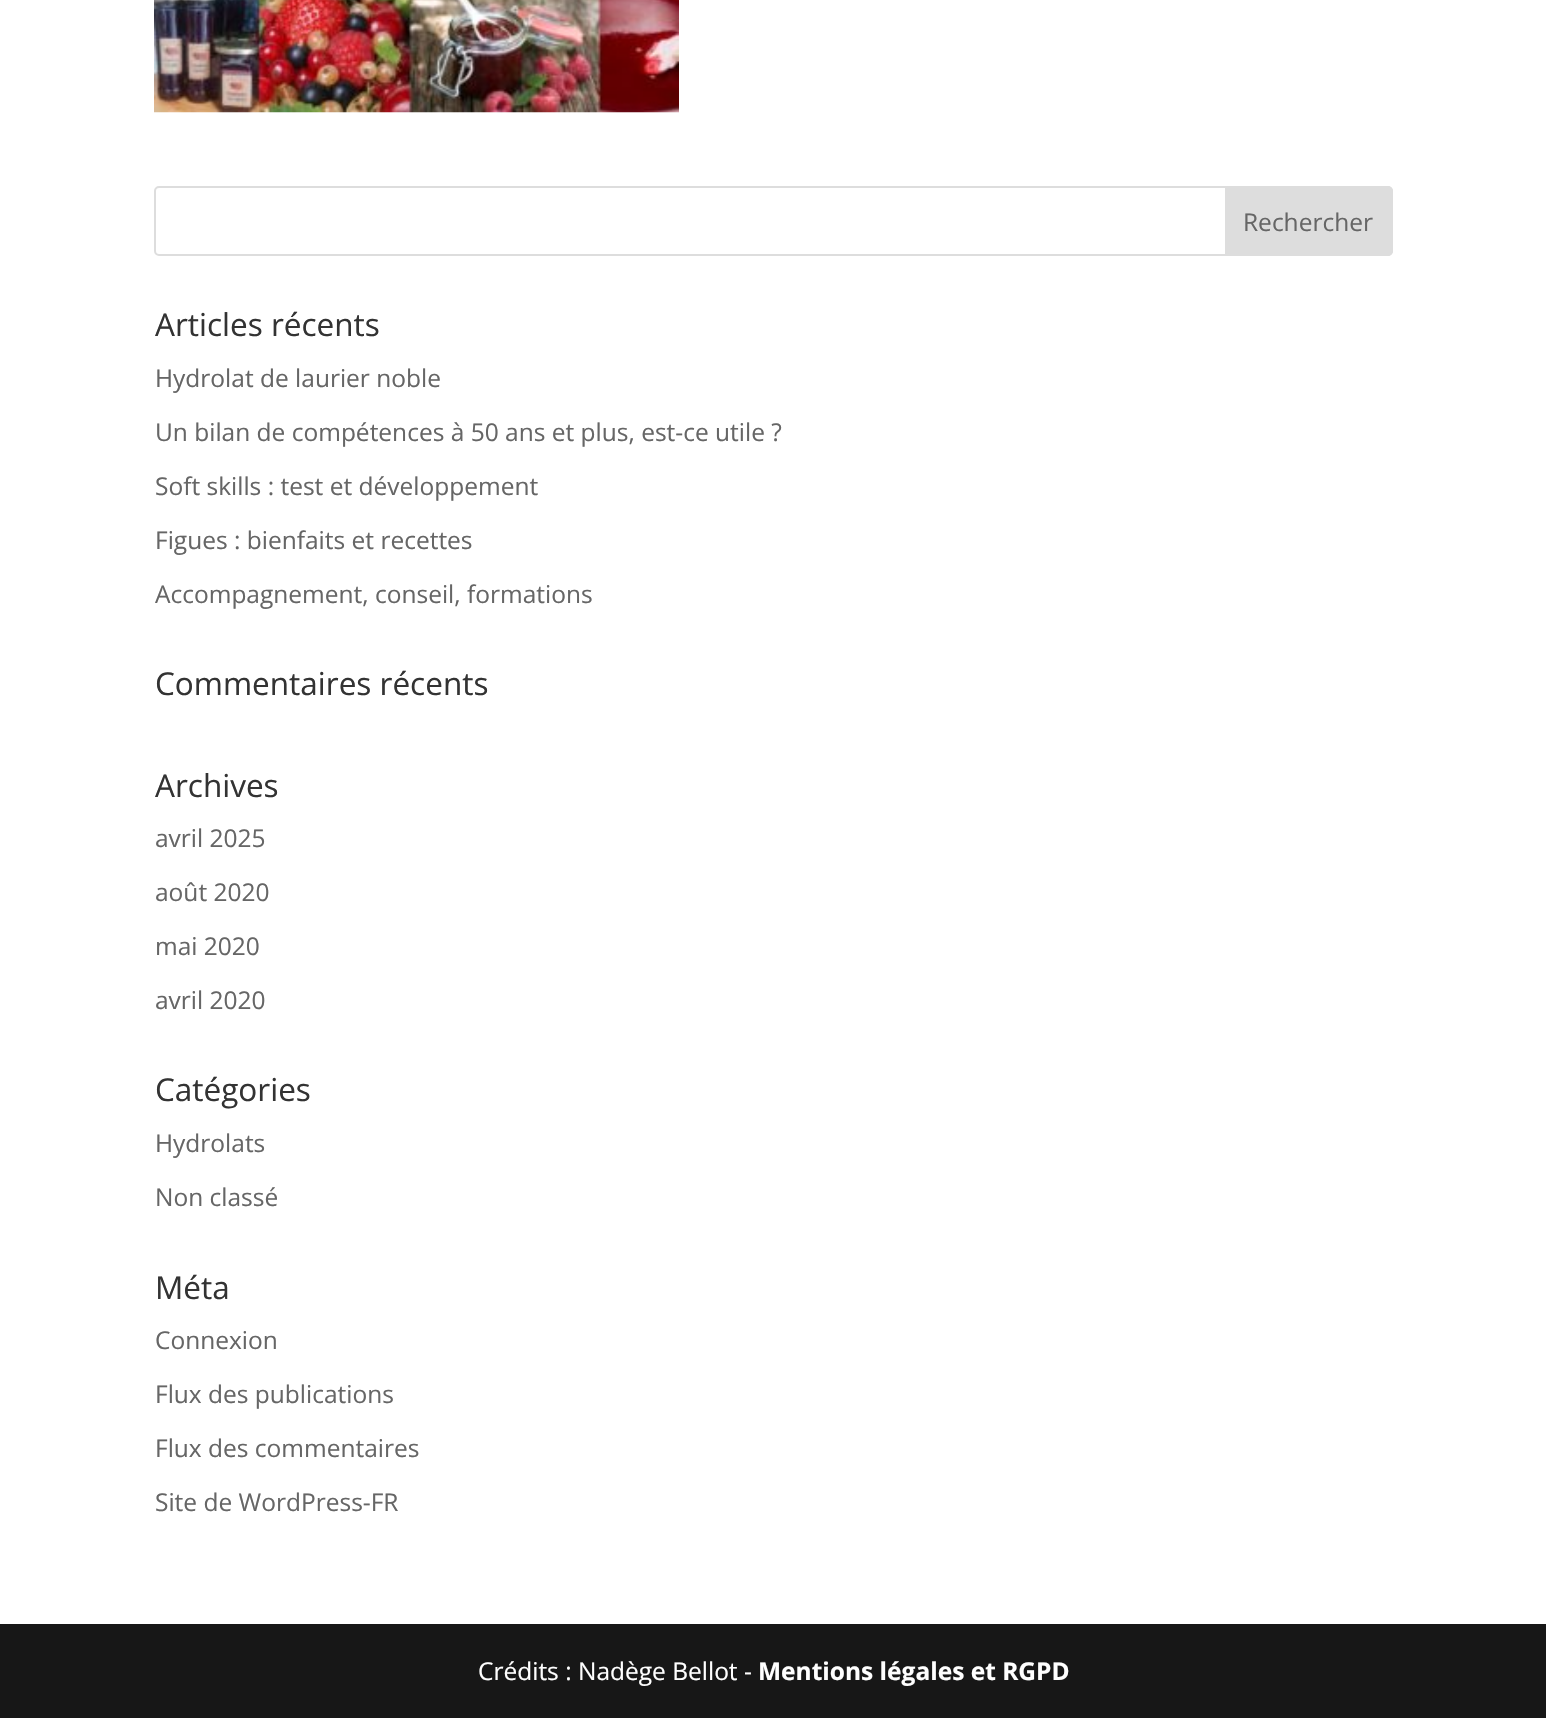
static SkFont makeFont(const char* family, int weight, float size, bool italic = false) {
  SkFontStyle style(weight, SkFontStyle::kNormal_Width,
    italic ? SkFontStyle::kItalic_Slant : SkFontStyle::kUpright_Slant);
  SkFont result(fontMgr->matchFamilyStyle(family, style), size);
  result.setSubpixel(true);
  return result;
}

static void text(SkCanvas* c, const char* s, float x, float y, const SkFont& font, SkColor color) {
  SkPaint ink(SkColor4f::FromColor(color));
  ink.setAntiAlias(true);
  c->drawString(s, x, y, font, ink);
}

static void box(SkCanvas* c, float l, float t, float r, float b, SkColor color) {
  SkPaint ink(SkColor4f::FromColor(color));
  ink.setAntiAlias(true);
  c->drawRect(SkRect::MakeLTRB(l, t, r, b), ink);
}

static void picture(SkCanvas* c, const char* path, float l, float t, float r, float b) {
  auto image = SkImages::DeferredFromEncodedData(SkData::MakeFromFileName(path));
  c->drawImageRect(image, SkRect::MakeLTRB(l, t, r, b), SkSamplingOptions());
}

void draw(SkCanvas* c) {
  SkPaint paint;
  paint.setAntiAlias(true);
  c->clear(0xffffffff);
  picture(c, "img_01.png", 154, 0, 679, 113);
  paint.setStyle(SkPaint::kStroke_Style);
  paint.setStrokeWidth(2);
  paint.setColor(0xffdddddd);
  c->drawRoundRect(SkRect::MakeLTRB(155, 187, 1392, 255), 4, 4, paint);
  paint.setStyle(SkPaint::kFill_Style);
  c->drawPath(SkPathBuilder().moveTo(1226, 187).lineTo(1388, 187).cubicTo(1390, 187, 1392, 189, 1392, 191).lineTo(1392, 251).cubicTo(1392, 253, 1390, 255, 1388, 255).lineTo(1226, 255).close().detach(), paint);
  paint.setStyle(SkPaint::kStroke_Style);
  c->drawPath(SkPathBuilder().moveTo(1226, 187).lineTo(1388, 187).cubicTo(1390, 187, 1392, 189, 1392, 191).lineTo(1392, 251).cubicTo(1392, 253, 1390, 255, 1388, 255).lineTo(1226, 255).close().detach(), paint);
  SkFont face1 = makeFont("Open Sans", 400, 24.5f);
  text(c, "Rechercher", 1243, 231, face1, 0xff666666);
  SkFont face2 = makeFont("Open Sans", 400, 31.5f);
  text(c, "Articles récents", 155, 336, face2, 0xff333333);
  text(c, "Hydrolat de laurier noble", 155, 387, face1, 0xff666666);
  text(c, "Un bilan de compétences à 50 ans et plus, est-ce utile ?", 155, 441, face1, 0xff666666);
  text(c, "Soft skills : test et développement", 155, 495, face1, 0xff666666);
  text(c, "Figues : bienfaits et recettes", 155, 549, face1, 0xff666666);
  text(c, "Accompagnement, conseil, formations", 155, 603, face1, 0xff666666);
  text(c, "Commentaires récents", 155, 695, face2, 0xff333333);
  text(c, "Archives", 155, 797, face2, 0xff333333);
  text(c, "avril 2025", 155, 847, face1, 0xff666666);
  text(c, "août 2020", 155, 901, face1, 0xff666666);
  text(c, "mai 2020", 155, 955, face1, 0xff666666);
  text(c, "avril 2020", 155, 1009, face1, 0xff666666);
  text(c, "Catégories", 155, 1101, face2, 0xff333333);
  text(c, "Hydrolats", 155, 1152, face1, 0xff666666);
  text(c, "Non classé", 155, 1206, face1, 0xff666666);
  text(c, "Méta", 155, 1299, face2, 0xff333333);
  text(c, "Connexion", 155, 1349, face1, 0xff666666);
  text(c, "Flux des publications", 155, 1403, face1, 0xff666666);
  text(c, "Flux des commentaires", 155, 1457, face1, 0xff666666);
  text(c, "Site de WordPress-FR", 155, 1511, face1, 0xff666666);
  box(c, 0, 1624, 1546, 1718, 0xff171717);
  text(c, "Crédits : Nadège Bellot -", 478, 1680, face1, 0xffffffff);
  SkFont face3 = makeFont("Open Sans", 700, 24.5f);
  text(c, "Mentions légales et RGPD", 758, 1680, face3, 0xffffffff);
}
